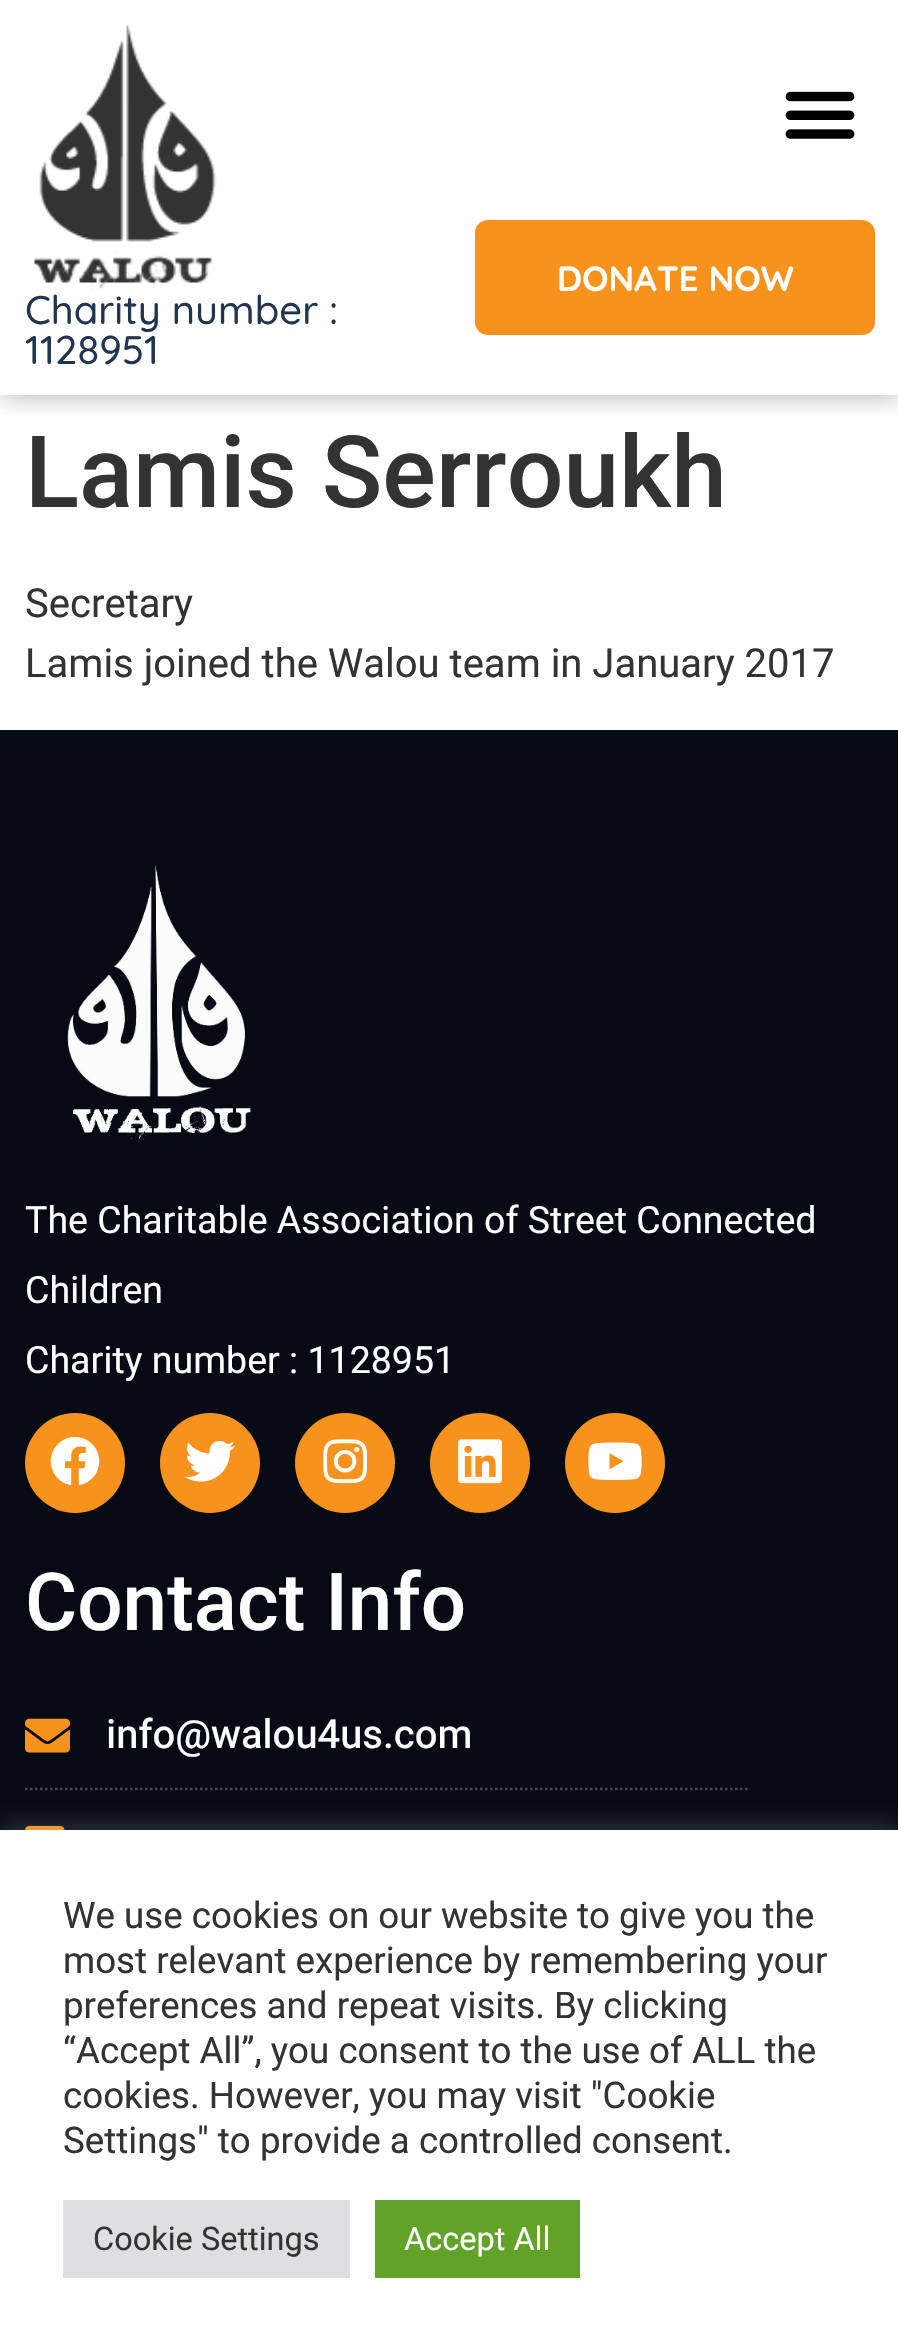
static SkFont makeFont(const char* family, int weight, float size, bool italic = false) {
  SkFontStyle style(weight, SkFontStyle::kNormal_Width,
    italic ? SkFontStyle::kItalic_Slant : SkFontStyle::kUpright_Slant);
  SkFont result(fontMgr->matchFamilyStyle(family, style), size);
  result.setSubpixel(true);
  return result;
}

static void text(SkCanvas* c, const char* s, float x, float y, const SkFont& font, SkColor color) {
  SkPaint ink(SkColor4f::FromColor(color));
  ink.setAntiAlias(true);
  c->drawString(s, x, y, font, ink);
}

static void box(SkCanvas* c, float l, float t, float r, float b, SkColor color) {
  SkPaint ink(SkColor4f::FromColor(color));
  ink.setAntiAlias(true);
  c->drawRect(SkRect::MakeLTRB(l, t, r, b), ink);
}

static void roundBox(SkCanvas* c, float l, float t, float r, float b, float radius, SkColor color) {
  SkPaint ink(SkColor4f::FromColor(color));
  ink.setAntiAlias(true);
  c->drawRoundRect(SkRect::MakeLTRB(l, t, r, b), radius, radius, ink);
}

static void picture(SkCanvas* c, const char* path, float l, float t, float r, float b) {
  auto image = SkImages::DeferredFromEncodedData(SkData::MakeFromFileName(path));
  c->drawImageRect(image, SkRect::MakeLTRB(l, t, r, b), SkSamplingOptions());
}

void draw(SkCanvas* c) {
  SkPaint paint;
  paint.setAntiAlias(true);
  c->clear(0xffffffff);
  c->save();
  c->clipRect(SkRect::MakeLTRB(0, 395, 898, 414));
  paint.setColor(0x52000000);
  paint.setMaskFilter(SkMaskFilter::MakeBlur(kNormal_SkBlurStyle, 12.5f));
  c->drawRect(SkRect::MakeLTRB(0, 0, 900, 395), paint);
  paint.setMaskFilter(nullptr);
  c->restore();
  picture(c, "img_01.png", 785, 91, 855, 139);
  roundBox(c, 475, 220, 875, 335, 13, 0xfff7931d);
  SkFont face1 = makeFont("Quicksand", 700, 35);
  text(c, "DONATE NOW", 557, 291, face1, 0xffffffff);
  picture(c, "img_02.png", 34, 25, 217, 290);
  SkFont face2 = makeFont("Quicksand", 500, 40);
  text(c, "Charity number :", 25, 324, face2, 0xff20354f);
  text(c, "1128951", 25, 364, face2, 0xff20354f);
  SkFont face3 = makeFont("Roboto", 500, 100);
  text(c, "Lamis Serroukh", 25, 507, face3, 0xff333333);
  SkFont face4 = makeFont("Roboto", 400, 40);
  text(c, "Secretary", 25, 617, face4, 0xff333333);
  text(c, "Lamis joined the Walou team in January 2017", 25, 677, face4, 0xff333333);
  box(c, 0, 730, 898, 1830, 0xff050a15);
  picture(c, "img_03.png", 67, 865, 251, 1140);
  SkFont face5 = makeFont("Heebo", 400, 37.5f);
  text(c, "The Charitable Association of Street Connected", 25, 1233, face5, 0xffffffff);
  text(c, "Children", 25, 1303, face5, 0xffffffff);
  text(c, "Charity number : 1128951", 25, 1373, face5, 0xffffffff);
  paint.setColor(0xfff7931d);
  c->drawCircle(75, 1463, 50, paint);
  picture(c, "img_04.png", 50, 1437, 100, 1486);
  c->drawCircle(210, 1463, 50, paint);
  picture(c, "img_05.png", 185, 1440, 235, 1482);
  c->drawCircle(345, 1463, 50, paint);
  picture(c, "img_06.png", 323, 1439, 367, 1484);
  c->drawCircle(480, 1463, 50, paint);
  picture(c, "img_07.png", 458, 1439, 502, 1484);
  c->drawCircle(615, 1463, 50, paint);
  picture(c, "img_08.png", 588, 1442, 642, 1480);
  SkFont face6 = makeFont("Roboto", 500, 80);
  text(c, "Contact Info", 25, 1630, face6, 0xffffffff);
  picture(c, "img_09.png", 25, 1718, 70, 1753);
  SkFont face7 = makeFont("Heebo", 500, 40);
  text(c, "info@walou4us.com", 106, 1748, face7, 0xffffffff);
  paint.setStyle(SkPaint::kStroke_Style);
  paint.setStrokeWidth(2.5f);
  paint.setColor(0xff464a52);
  paint.setPathEffect(SkDashPathEffect::Make({{2.5f, 2.5f}}, 0));
  c->drawPath(SkPathBuilder().moveTo(25, 1789).lineTo(750, 1789).detach(), paint);
  paint.setPathEffect(nullptr);
  picture(c, "img_10.png", 25, 1825, 65, 1830);
  paint.setStyle(SkPaint::kFill_Style);
  paint.setColor(0x4dacabab);
  paint.setMaskFilter(SkMaskFilter::MakeBlur(kNormal_SkBlurStyle, 12.5f));
  c->drawRect(SkRect::MakeLTRB(0, 1828, 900, 2350), paint);
  paint.setMaskFilter(nullptr);
  box(c, 0, 1830, 898, 2351, 0xffffffff);
  SkFont face8 = makeFont("Roboto", 400, 36.7f);
  text(c, "We use cookies on our website to give you the", 63, 1928, face8, 0xff333333);
  text(c, "most relevant experience by remembering your", 63, 1973, face8, 0xff333333);
  text(c, "preferences and repeat visits. By clicking", 63, 2018, face8, 0xff333333);
  text(c, "“Accept All”, you consent to the use of ALL the", 63, 2063, face8, 0xff333333);
  text(c, "cookies. However, you may visit \"Cookie", 63, 2108, face8, 0xff333333);
  text(c, "Settings\" to provide a controlled consent.", 63, 2153, face8, 0xff333333);
  box(c, 63, 2200, 350, 2278, 0xffdedfe0);
  SkFont face9 = makeFont("Roboto", 400, 32.5f);
  text(c, "Cookie Settings", 93, 2250, face9, 0xff333333);
  box(c, 375, 2200, 580, 2278, 0xff61a229);
  text(c, "Accept All", 404, 2250, face9, 0xffffffff);
}
